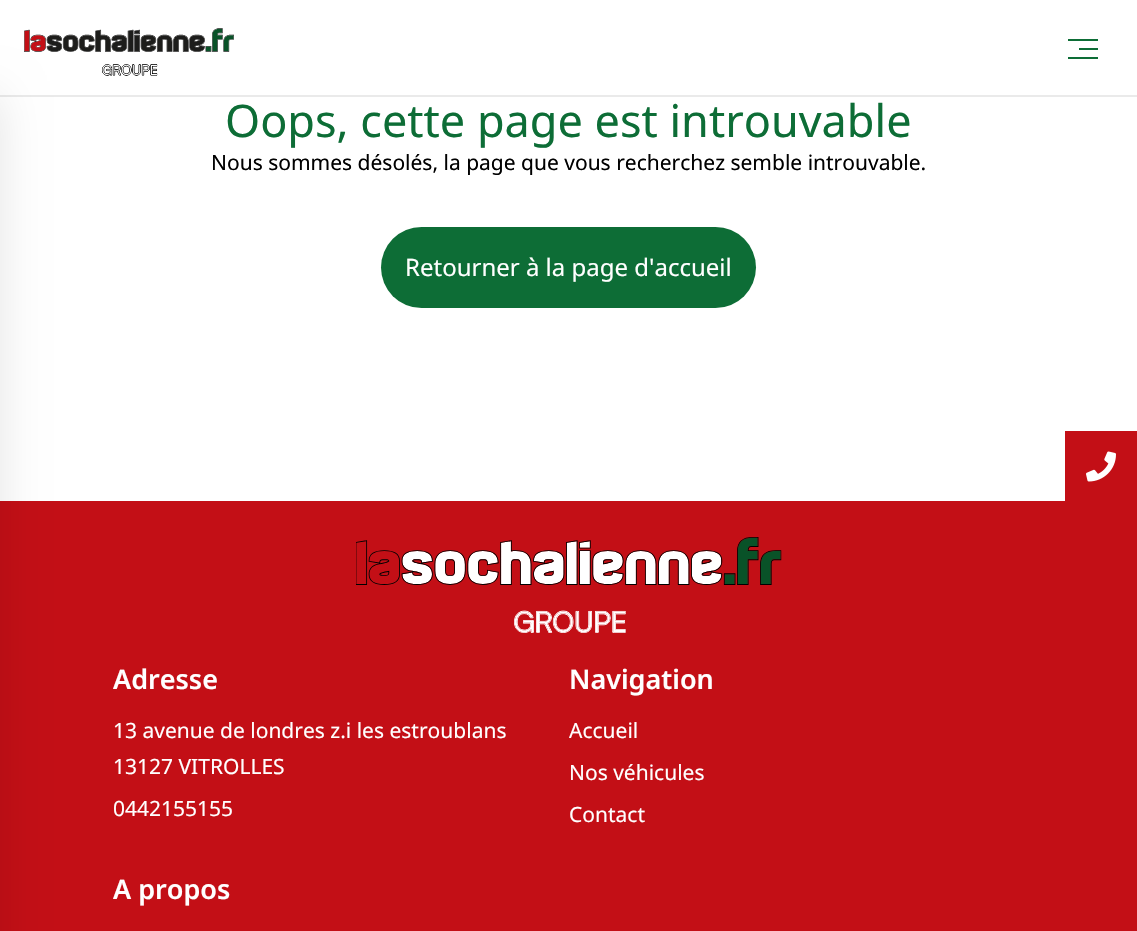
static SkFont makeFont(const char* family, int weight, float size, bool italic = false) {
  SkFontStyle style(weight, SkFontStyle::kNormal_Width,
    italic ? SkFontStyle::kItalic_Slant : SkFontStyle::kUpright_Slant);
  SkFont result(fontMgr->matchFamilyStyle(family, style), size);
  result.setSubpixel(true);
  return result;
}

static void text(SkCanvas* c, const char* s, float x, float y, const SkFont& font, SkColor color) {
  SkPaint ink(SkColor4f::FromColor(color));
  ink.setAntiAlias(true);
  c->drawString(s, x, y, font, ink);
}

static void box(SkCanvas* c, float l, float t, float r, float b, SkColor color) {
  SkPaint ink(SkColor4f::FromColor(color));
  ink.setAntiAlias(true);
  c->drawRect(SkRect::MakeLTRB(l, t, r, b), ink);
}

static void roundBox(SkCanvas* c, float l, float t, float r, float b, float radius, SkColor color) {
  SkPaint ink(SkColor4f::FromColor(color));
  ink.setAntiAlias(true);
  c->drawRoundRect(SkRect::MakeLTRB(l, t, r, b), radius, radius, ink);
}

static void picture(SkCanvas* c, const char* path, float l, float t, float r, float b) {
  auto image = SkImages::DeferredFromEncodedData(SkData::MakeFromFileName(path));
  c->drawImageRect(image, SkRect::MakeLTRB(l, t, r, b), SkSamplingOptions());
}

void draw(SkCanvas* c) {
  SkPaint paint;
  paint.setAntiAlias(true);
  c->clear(0xffffffff);
  box(c, 0, 95, 1137, 97, 0xffeaeaea);
  box(c, 0, 501, 1137, 931, 0xffc30f16);
  paint.setColor(0x1a000000);
  paint.setMaskFilter(SkMaskFilter::MakeBlur(kNormal_SkBlurStyle, 22.5f));
  c->drawRect(SkRect::MakeLTRB(-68, 96, 0, 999), paint);
  paint.setMaskFilter(nullptr);
  picture(c, "img_01.png", 24, 28, 234, 76);
  box(c, 1068, 39, 1098, 41, 0xff0d6d36);
  box(c, 1079, 48, 1098, 50, 0xff0d6d36);
  box(c, 1068, 57, 1098, 59, 0xff0d6d36);
  SkFont face1 = makeFont("Noto Sans", 400, 45);
  text(c, "Oops, cette page est introuvable", 225, 137, face1, 0xff0d6d36);
  SkFont face2 = makeFont("Noto Sans", 400, 21);
  text(c, "Nous sommes désolés, la page que vous recherchez semble introuvable.", 211, 170, face2, 0xff000000);
  roundBox(c, 381, 227, 756, 308, 40.5f, 0xff0d6d36);
  SkFont face3 = makeFont("Noto Sans", 400, 24);
  text(c, "Retourner à la page d'accueil", 405, 276, face3, 0xffffffff);
  box(c, 1065, 431, 1137, 501, 0xffc30f16);
  picture(c, "img_02.png", 1086, 451, 1116, 482);
  picture(c, "img_03.png", 356, 537, 782, 633);
  SkFont face4 = makeFont("Noto Sans", 600, 27);
  text(c, "Adresse", 113, 689, face4, 0xffffffff);
  text(c, "13 avenue de londres z.i les estroublans", 113, 738, face2, 0xffffffff);
  text(c, "13127 VITROLLES", 113, 774, face2, 0xffffffff);
  text(c, "0442155155", 113, 816, face2, 0xffffffff);
  text(c, "Navigation", 569, 689, face4, 0xffffffff);
  text(c, "Accueil", 569, 738, face2, 0xffffffff);
  text(c, "Nos véhicules", 569, 780, face2, 0xffffffff);
  text(c, "Contact", 569, 822, face2, 0xffffffff);
  text(c, "A propos", 113, 899, face4, 0xffffffff);
}
